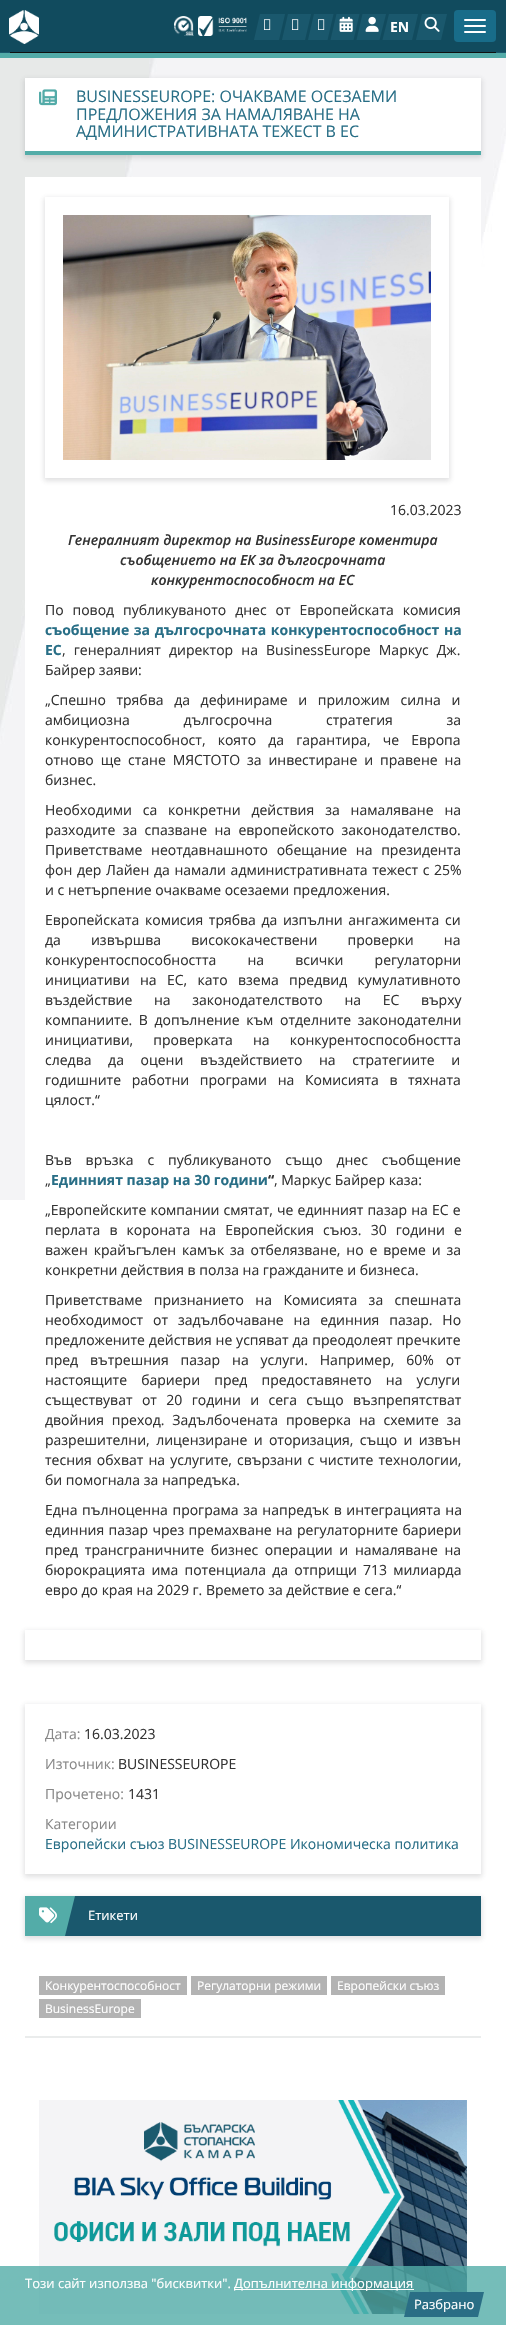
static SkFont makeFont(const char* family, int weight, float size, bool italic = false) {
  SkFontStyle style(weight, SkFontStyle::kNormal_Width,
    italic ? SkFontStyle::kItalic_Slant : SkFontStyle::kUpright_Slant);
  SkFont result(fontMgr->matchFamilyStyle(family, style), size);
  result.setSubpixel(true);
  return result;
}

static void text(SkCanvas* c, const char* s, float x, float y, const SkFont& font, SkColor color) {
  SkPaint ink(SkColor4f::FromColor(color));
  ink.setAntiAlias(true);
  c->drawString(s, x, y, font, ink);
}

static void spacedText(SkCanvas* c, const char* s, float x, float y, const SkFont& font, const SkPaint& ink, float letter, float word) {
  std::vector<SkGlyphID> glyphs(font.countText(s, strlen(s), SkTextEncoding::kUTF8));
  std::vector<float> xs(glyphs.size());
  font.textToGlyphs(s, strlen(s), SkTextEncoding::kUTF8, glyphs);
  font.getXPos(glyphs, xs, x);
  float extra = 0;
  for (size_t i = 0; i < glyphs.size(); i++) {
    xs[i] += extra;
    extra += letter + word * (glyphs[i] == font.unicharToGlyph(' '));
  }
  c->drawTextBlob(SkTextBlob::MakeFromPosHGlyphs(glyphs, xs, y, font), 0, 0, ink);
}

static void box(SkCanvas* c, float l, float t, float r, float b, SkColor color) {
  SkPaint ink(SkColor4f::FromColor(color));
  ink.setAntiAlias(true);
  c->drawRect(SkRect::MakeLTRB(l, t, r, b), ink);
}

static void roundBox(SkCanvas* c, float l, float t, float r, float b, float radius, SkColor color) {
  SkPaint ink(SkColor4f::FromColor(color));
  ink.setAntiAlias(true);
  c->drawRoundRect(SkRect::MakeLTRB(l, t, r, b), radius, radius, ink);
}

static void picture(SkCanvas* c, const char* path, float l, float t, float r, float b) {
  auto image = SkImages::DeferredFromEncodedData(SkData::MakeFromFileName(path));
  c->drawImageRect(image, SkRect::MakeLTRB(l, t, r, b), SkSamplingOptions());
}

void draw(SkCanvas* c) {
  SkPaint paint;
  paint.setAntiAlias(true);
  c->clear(0xffffffff);
  picture(c, "img_01.png", 0, 58, 506, 1200);
  box(c, 0, 0, 506, 52, 0xff114b5e);
  box(c, 0, 53, 506, 58, 0xff53aba8);
  picture(c, "img_02.png", 9, 10, 39, 44);
  picture(c, "img_03.png", 174, 16, 194, 36);
  picture(c, "img_04.png", 198, 16, 247, 36);
  paint.setColor(0xff1a586d);
  c->drawPath(SkPathBuilder().moveTo(260, 14).lineTo(285, 14).lineTo(279, 40).lineTo(254, 40).close().detach(), paint);
  picture(c, "img_05.png", 264, 19, 271, 30);
  c->drawPath(SkPathBuilder().moveTo(288, 14).lineTo(311, 14).lineTo(305, 40).lineTo(282, 40).close().detach(), paint);
  picture(c, "img_05.png", 292, 19, 299, 30);
  c->drawPath(SkPathBuilder().moveTo(314, 14).lineTo(333.5f, 14).lineTo(327.5f, 40).lineTo(308, 40).close().detach(), paint);
  picture(c, "img_05.png", 318, 19, 325, 30);
  c->drawPath(SkPathBuilder().moveTo(336.5f, 14).lineTo(359.5f, 14).lineTo(353.5f, 40).lineTo(330.5f, 40).close().detach(), paint);
  picture(c, "img_06.png", 339, 16, 353, 32);
  c->drawPath(SkPathBuilder().moveTo(362.5f, 14).lineTo(386, 14).lineTo(379.5f, 40).lineTo(356.5f, 40).close().detach(), paint);
  picture(c, "img_07.png", 365, 16, 379, 32);
  c->drawPath(SkPathBuilder().moveTo(389, 14).lineTo(418, 14).lineTo(412, 40).lineTo(382.5f, 40).close().detach(), paint);
  SkFont face1 = makeFont("Open Sans", 700, 14);
  text(c, "EN", 390, 32, face1, 0xffffffff);
  c->drawPath(SkPathBuilder().moveTo(422, 14).lineTo(447, 14).lineTo(441, 40).lineTo(416, 40).close().detach(), paint);
  picture(c, "img_08.png", 424, 16, 440, 32);
  roundBox(c, 454, 10, 496, 42, 4, 0xff186c89);
  roundBox(c, 464, 19, 486, 21, 1, 0xffffffff);
  roundBox(c, 464, 25, 486, 27, 1, 0xffffffff);
  roundBox(c, 464, 31, 486, 33, 1, 0xffffffff);
  box(c, 0, 52, 506, 53, 0xff1a586d);
  box(c, 10, 52, 496, 53, 0xff101010);
  paint.setColor(0x29403c43);
  paint.setMaskFilter(SkMaskFilter::MakeBlur(kNormal_SkBlurStyle, 2.5f));
  c->drawRect(SkRect::MakeLTRB(24, 79, 482, 158), paint);
  paint.setMaskFilter(nullptr);
  box(c, 25, 78, 481, 151, 0xffffffff);
  box(c, 25, 151, 481, 155, 0xff53aca8);
  picture(c, "img_09.png", 39, 89, 57, 106);
  SkFont face2 = makeFont("Open Sans", 400, 16);
  text(c, "BUSINESSEUROPE: ОЧАКВАМЕ ОСЕЗАЕМИ", 76, 102, face2, 0xff286e86);
  text(c, "ПРЕДЛОЖЕНИЯ ЗА НАМАЛЯВАНЕ НА", 76, 120, face2, 0xff286e86);
  text(c, "АДМИНИСТРАТИВНАТА ТЕЖЕСТ В ЕС", 76, 137, face2, 0xff286e86);
  box(c, 25, 177, 481, 1200, 0xffffffff);
  c->save();
  c->clipPath(SkPathBuilder(SkPathFillType::kEvenOdd).moveTo(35, 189).lineTo(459, 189).lineTo(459, 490).lineTo(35, 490).close().moveTo(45, 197).lineTo(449, 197).lineTo(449, 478).lineTo(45, 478).close().detach(), true);
  paint.setMaskFilter(SkMaskFilter::MakeBlur(kNormal_SkBlurStyle, 2.5f));
  c->drawRect(SkRect::MakeLTRB(44, 198, 450, 481), paint);
  paint.setMaskFilter(nullptr);
  c->restore();
  picture(c, "img_10.png", 63, 215, 431, 460);
  SkFont face3 = makeFont("Open Sans", 400, 14);
  text(c, "16.03.2023", 390, 515, face3, 0xff333333);
  SkFont face4 = makeFont("Open Sans", 600, 14, true);
  text(c, "Генералният директор на BusinessEurope коментира", 68, 545, face4, 0xff333333);
  text(c, "съобщението на ЕК за дългосрочната", 120, 565, face4, 0xff333333);
  text(c, "конкурентоспособност на ЕС", 151, 585, face4, 0xff333333);
  paint.setColor(0xff333333);
  spacedText(c, "По повод публикуваното днес от Европейската комисия", 45, 615, face3, paint, 0, 5.25f);
  paint.setColor(0xff286e86);
  spacedText(c, "съобщение за дългосрочната конкурентоспособност на", 45, 635, face1, paint, 0, 1);
  text(c, "ЕС", 45, 655, face1, 0xff286e86);
  paint.setColor(0xff333333);
  spacedText(c, ", генералният директор на BusinessEurope Маркус Дж.", 62, 655, face3, paint, 0, 4.5f);
  text(c, "Байрер заяви:", 45, 675, face3, 0xff333333);
  spacedText(c, "„Спешно трябва да дефинираме и приложим силна и", 45, 705, face3, paint, 0, 7);
  spacedText(c, "амбициозна дългосрочна стратегия за", 45, 725, face3, paint, 0, 50);
  spacedText(c, "конкурентоспособност, която да гарантира, че Европа", 45, 745, face3, paint, 0, 8.5f);
  spacedText(c, "отново ще стане МЯСТОТО за инвестиране и правене на", 45, 765, face3, paint, 0, 3.25f);
  text(c, "бизнес.", 45, 785, face3, 0xff333333);
  spacedText(c, "Необходими са конкретни действия за намаляване на", 45, 815, face3, paint, 0, 7.25f);
  spacedText(c, "разходите за спазване на европейското законодателство.", 45, 835, face3, paint, 0, 3.75f);
  spacedText(c, "Приветстваме неотдавнашното обещание на президента", 45, 855, face3, paint, 0, 5);
  spacedText(c, "фон дер Лайен да намали административната тежест с 25%", 45, 875, face3, paint, 0, 1);
  text(c, "и с нетърпение очакваме осезаеми предложения.", 45, 895, face3, 0xff333333);
  spacedText(c, "Европейската комисия трябва да изпълни ангажимента си", 45, 925, face3, paint, 0, 2);
  spacedText(c, "да извършва висококачествени проверки на", 45, 945, face3, paint, 0, 26.5f);
  spacedText(c, "конкурентоспособността на всички регулаторни", 45, 965, face3, paint, 0, 27.5f);
  spacedText(c, "инициативи на ЕС, като взема предвид кумулативното", 45, 985, face3, paint, 0, 6.75f);
  spacedText(c, "въздействие на законодателството на ЕС върху", 45, 1005, face3, paint, 0, 18);
  spacedText(c, "компаниите. В допълнение към отделните законодателни", 45, 1025, face3, paint, 0, 3);
  spacedText(c, "инициативи, проверката на конкурентоспособността", 45, 1045, face3, paint, 0, 16.5f);
  spacedText(c, "следва да оцени въздействието на стратегиите и", 45, 1065, face3, paint, 0, 13);
  spacedText(c, "годишните работни програми на Комисията в тяхната", 45, 1085, face3, paint, 0, 7);
  text(c, "цялост.“", 45, 1105, face3, 0xff333333);
  spacedText(c, "Във връзка с публикуваното също днес съобщение", 45, 1165, face3, paint, 0, 10.25f);
  text(c, "Единният пазар на 30 години", 51, 1185, face1, 0xff286e86);
  text(c, "“", 268, 1185, face1, 0xff333333);
  text(c, ", Маркус Байрер каза:", 274, 1185, face3, 0xff333333);
  text(c, "„", 45, 1185, face3, 0xff333333);
  spacedText(c, "„Европейските компании смятат, че единният пазар на ЕС е", 45, 1215, face3, paint, 0, 0.5f);
  spacedText(c, "перлата в короната на Европейския съюз. 30 години е", 45, 1235, face3, paint, 0, 5.5f);
  spacedText(c, "важен крайъгълен камък за отбелязване, но е време и за", 45, 1255, face3, paint, 0, 2.25f);
  text(c, "конкретни действия в полза на гражданите и бизнеса.", 45, 1275, face3, 0xff333333);
  spacedText(c, "Приветстваме признанието на Комисията за спешната", 45, 1305, face3, paint, 0, 7.75f);
  spacedText(c, "необходимост от задълбочаване на единния пазар. Но", 45, 1325, face3, paint, 0, 6.25f);
  spacedText(c, "предложените действия не успяват да преодолеят пречките", 45, 1345, face3, paint, 0, 0.25f);
  spacedText(c, "пред вътрешния пазар на услуги. Например, 60% от", 45, 1365, face3, paint, 0, 8.25f);
  spacedText(c, "настоящите бариери пред предоставянето на услуги", 45, 1385, face3, paint, 0, 10.5f);
  spacedText(c, "съществуват от 20 години и сега също възпрепятстват", 45, 1405, face3, paint, 0, 5.75f);
  spacedText(c, "двойния преход. Задълбочената проверка на схемите за", 45, 1425, face3, paint, 0, 4.25f);
  spacedText(c, "разрешителни, лицензиране и оторизация, също и извън", 45, 1445, face3, paint, 0, 2.75f);
  spacedText(c, "тесния обхват на услугите, свързани с чистите технологии,", 45, 1465, face3, paint, 0, 1.5f);
  text(c, "би помогнала за напредъка.", 45, 1485, face3, 0xff333333);
  spacedText(c, "Една пълноценна програма за напредък в интеграцията на", 45, 1515, face3, paint, 0, 1);
  spacedText(c, "единния пазар чрез премахване на регулаторните бариери", 45, 1535, face3, paint, 0, 0.75f);
  spacedText(c, "пред трансграничните бизнес операции и намаляване на", 45, 1555, face3, paint, 0, 3);
  spacedText(c, "бюрокрацията има потенциала да отприщи 713 милиарда", 45, 1575, face3, paint, 0, 2.5f);
  text(c, "евро до края на 2029 г. Времето за действие е сега.“", 45, 1595, face3, 0xff333333);
  c->save();
  c->clipPath(SkPathBuilder(SkPathFillType::kEvenOdd).moveTo(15, 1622).lineTo(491, 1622).lineTo(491, 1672).lineTo(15, 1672).close().moveTo(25, 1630).lineTo(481, 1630).lineTo(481, 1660).lineTo(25, 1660).close().detach(), true);
  paint.setColor(0x29403c43);
  paint.setMaskFilter(SkMaskFilter::MakeBlur(kNormal_SkBlurStyle, 2.5f));
  c->drawRect(SkRect::MakeLTRB(24, 1631, 482, 1663), paint);
  paint.setMaskFilter(nullptr);
  c->restore();
  c->save();
  c->clipPath(SkPathBuilder(SkPathFillType::kEvenOdd).moveTo(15, 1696).lineTo(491, 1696).lineTo(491, 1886).lineTo(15, 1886).close().moveTo(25, 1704).lineTo(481, 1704).lineTo(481, 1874).lineTo(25, 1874).close().detach(), true);
  paint.setMaskFilter(SkMaskFilter::MakeBlur(kNormal_SkBlurStyle, 2.5f));
  c->drawRect(SkRect::MakeLTRB(24, 1705, 482, 1877), paint);
  paint.setMaskFilter(nullptr);
  c->restore();
  text(c, "Дата:", 45, 1739, face3, 0xff888888);
  text(c, "16.03.2023", 84, 1739, face3, 0xff333333);
  text(c, "Източник:", 45, 1769, face3, 0xff888888);
  text(c, "BUSINESSEUROPE", 118, 1769, face3, 0xff333333);
  text(c, "Прочетено:", 45, 1799, face3, 0xff888888);
  text(c, "1431", 128, 1799, face3, 0xff333333);
  text(c, "Категории", 45, 1829, face3, 0xff888888);
  text(c, "Европейски съюз BUSINESSEUROPE Икономическа политика", 45, 1849, face3, 0xff286e86);
  paint.setMaskFilter(SkMaskFilter::MakeBlur(kNormal_SkBlurStyle, 2.5f));
  c->drawRect(SkRect::MakeLTRB(24, 1897, 482, 1939), paint);
  paint.setMaskFilter(nullptr);
  box(c, 151, 1896, 481, 1936, 0xff1a586d);
  box(c, 25, 1896, 75, 1936, 0xff53aca8);
  picture(c, "img_11.png", 39, 1907, 57, 1924);
  paint.setColor(0xff1a586d);
  c->drawPath(SkPathBuilder().moveTo(75, 1896).lineTo(161, 1896).lineTo(151, 1936).lineTo(65, 1936).close().detach(), paint);
  SkFont face5 = makeFont("Open Sans", 400, 13);
  text(c, "Етикети", 88, 1920, face5, 0xffffffff);
  box(c, 25, 2036, 481, 2038, 0xffeaecec);
  box(c, 39, 1976, 187, 1995, 0xffb3b3b3);
  SkFont face6 = makeFont("Open Sans", 400, 12);
  text(c, "Конкурентоспособност", 45, 1990, face6, 0xffffffff);
  box(c, 191, 1976, 327, 1995, 0xffb3b3b3);
  text(c, "Регулаторни режими", 197, 1990, face6, 0xffffffff);
  box(c, 331, 1976, 445, 1995, 0xffb3b3b3);
  text(c, "Европейски съюз", 337, 1990, face6, 0xffffffff);
  box(c, 39, 1999, 141, 2018, 0xffb3b3b3);
  text(c, "BusinessEurope", 45, 2013, face6, 0xffffffff);
  picture(c, "img_12.png", 39, 2100, 467, 2314);
  box(c, 0, 2266, 506, 2325, 0xcc53aca8);
  text(c, "Този сайт използва \"бисквитки\".", 25, 2288, face5, 0xffffffff);
  box(c, 234, 2289, 414, 2290, 0xffffffff);
  text(c, "Допълнителна информация", 234, 2288, face5, 0xffffffff);
  paint.setColor(0xff2a6e85);
  c->drawPath(SkPathBuilder().moveTo(410, 2292).lineTo(484, 2292).lineTo(478, 2317).lineTo(404, 2317).close().detach(), paint);
  text(c, "Разбрано", 414, 2309, face5, 0xffffffff);
}
